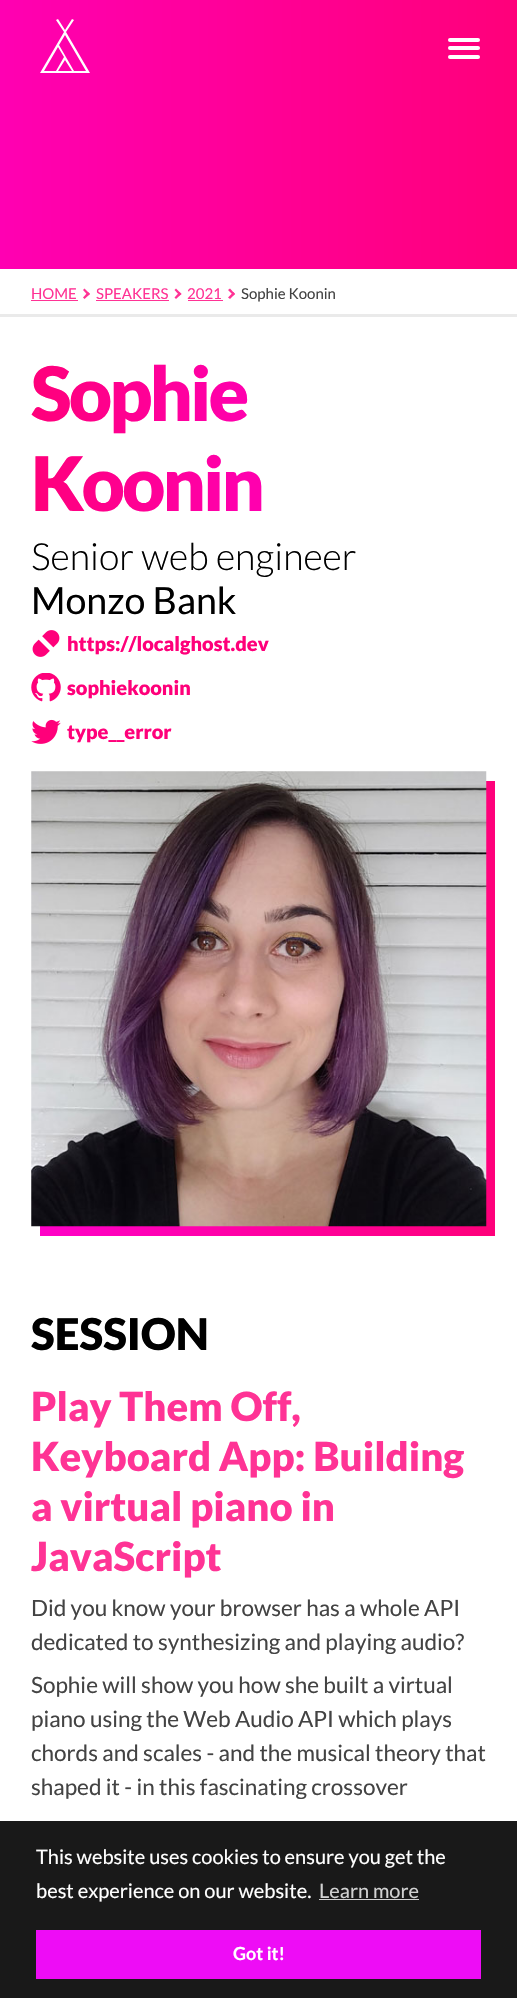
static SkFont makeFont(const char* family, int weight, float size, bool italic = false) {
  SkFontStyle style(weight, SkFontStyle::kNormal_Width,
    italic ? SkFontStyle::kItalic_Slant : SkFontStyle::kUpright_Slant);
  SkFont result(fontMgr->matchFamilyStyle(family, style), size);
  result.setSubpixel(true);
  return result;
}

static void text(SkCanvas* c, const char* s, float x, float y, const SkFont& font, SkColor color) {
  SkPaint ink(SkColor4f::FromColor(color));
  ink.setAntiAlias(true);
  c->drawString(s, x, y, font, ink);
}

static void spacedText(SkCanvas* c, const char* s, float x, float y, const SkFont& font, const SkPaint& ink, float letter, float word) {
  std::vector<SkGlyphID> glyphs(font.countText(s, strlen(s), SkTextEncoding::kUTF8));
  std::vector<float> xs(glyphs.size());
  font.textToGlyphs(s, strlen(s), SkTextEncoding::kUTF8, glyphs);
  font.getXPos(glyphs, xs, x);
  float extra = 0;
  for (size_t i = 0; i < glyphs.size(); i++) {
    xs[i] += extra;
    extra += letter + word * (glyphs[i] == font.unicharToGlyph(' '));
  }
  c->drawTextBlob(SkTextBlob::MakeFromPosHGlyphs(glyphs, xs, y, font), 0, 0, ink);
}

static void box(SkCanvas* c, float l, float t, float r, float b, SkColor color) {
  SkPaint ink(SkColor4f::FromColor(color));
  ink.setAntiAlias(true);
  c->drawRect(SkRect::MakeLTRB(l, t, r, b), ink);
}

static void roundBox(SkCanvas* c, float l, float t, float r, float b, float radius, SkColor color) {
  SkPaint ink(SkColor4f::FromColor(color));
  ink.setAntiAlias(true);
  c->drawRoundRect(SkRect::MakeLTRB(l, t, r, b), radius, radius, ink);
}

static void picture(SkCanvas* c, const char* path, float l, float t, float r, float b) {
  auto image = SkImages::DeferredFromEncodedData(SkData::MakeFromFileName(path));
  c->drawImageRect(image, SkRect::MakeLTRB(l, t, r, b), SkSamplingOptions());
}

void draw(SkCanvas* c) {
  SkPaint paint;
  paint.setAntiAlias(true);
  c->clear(0xffffffff);
  {
    const SkColor colors[] = {0xffff00b2, 0xffff007a};
    const float stops[] = {0, 1};
    const SkPoint ends[] = {{0, 241}, {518, 241}};
    paint.setShader(SkGradientShader::MakeLinear(ends, colors, stops, 2, SkTileMode::kClamp));
    paint.setAlpha(255);
  }
  c->drawRect(SkRect::MakeLTRB(0, 0, 517, 269), paint);
  paint.setShader(nullptr);
  paint.setColor(0xffffffff);
  c->drawPath(SkPathBuilder().moveTo(90, 73).lineTo(66, 32).lineTo(74, 20).lineTo(72, 19).lineTo(65, 30).lineTo(58, 19).lineTo(56, 20).lineTo(64, 32).lineTo(40, 73).close().moveTo(72, 71).lineTo(58, 71).lineTo(65, 60).close().moveTo(56, 71).lineTo(44, 71).lineTo(58, 47).lineTo(64, 57).close().moveTo(86, 71).lineTo(74, 71).lineTo(59, 45).lineTo(65, 35).close().detach(), paint);
  roundBox(c, 448, 46, 480, 50, 2, 0xffffffff);
  roundBox(c, 448, 38, 480, 42, 2, 0xffffffff);
  roundBox(c, 448, 55, 480, 59, 2, 0xffffffff);
  box(c, 0, 314, 517, 317, 0xffeaeaea);
  SkFont face1 = makeFont("Lato", 400, 15);
  text(c, "HOME", 31, 299, face1, 0xffff3395);
  box(c, 31, 300, 78, 301, 0xffff3395);
  paint.setColor(0xffff3395);
  c->drawPath(SkPathBuilder().moveTo(83, 290).lineTo(84.5f, 288.5f).lineTo(90, 294).lineTo(88, 295.5f).close().detach(), paint);
  c->drawPath(SkPathBuilder().moveTo(83, 297.5f).lineTo(88, 292).lineTo(90, 294).lineTo(84.5f, 299).close().detach(), paint);
  text(c, "SPEAKERS", 96, 299, face1, 0xffff3395);
  box(c, 96, 300, 169, 301, 0xffff3395);
  c->drawPath(SkPathBuilder().moveTo(174.5f, 290).lineTo(176, 288.5f).lineTo(181.5f, 294).lineTo(179.5f, 295.5f).close().detach(), paint);
  c->drawPath(SkPathBuilder().moveTo(174.5f, 297.5f).lineTo(179.5f, 292).lineTo(181.5f, 294).lineTo(176, 299).close().detach(), paint);
  text(c, "2021", 187, 299, face1, 0xffff3395);
  box(c, 188, 300, 223, 301, 0xffff3395);
  c->drawPath(SkPathBuilder().moveTo(228, 290).lineTo(230, 288.5f).lineTo(235, 294).lineTo(233.5f, 295.5f).close().detach(), paint);
  c->drawPath(SkPathBuilder().moveTo(228, 297.5f).lineTo(233.5f, 292).lineTo(235, 294).lineTo(230, 299).close().detach(), paint);
  text(c, "Sophie Koonin", 241, 299, face1, 0xff434343);
  SkFont face2 = makeFont("Lato", 900, 75);
  {
    const SkColor colors[] = {0xffff007a, 0xffff00ae, 0xffff00b2};
    const float stops[] = {0, 0.47f, 0.84f};
    const SkPoint ends[] = {{31, 438}, {486, 438}};
    paint.setShader(SkGradientShader::MakeLinear(ends, colors, stops, 3, SkTileMode::kClamp));
    paint.setAlpha(255);
  }
  spacedText(c, "Sophie", 31, 421, face2, paint, -3, 0);
  spacedText(c, "Koonin", 31, 511, face2, paint, -3, 0);
  SkFont face3 = makeFont("Lato", 300, 37.5f);
  text(c, "Senior web engineer", 31, 570, face3, 0xff000000);
  SkFont face4 = makeFont("Lato", 400, 37.5f);
  text(c, "Monzo Bank", 31, 614, face4, 0xff000000);
  picture(c, "img_01.png", 32, 630, 60, 657);
  SkFont face5 = makeFont("Lato", 900, 20);
  text(c, "https://localghost.dev", 67, 651, face5, 0xffff007a);
  picture(c, "img_02.png", 31, 673, 61, 702);
  text(c, "sophiekoonin", 67, 695, face5, 0xffff007a);
  picture(c, "img_03.png", 31, 719, 61, 744);
  text(c, "type__error", 67, 739, face5, 0xffff007a);
  {
    const SkColor colors[] = {0xffff00c8, 0xffff007a};
    const float stops[] = {0, 1};
    const SkPoint ends[] = {{40, 1009}, {495, 1009}};
    paint.setShader(SkGradientShader::MakeLinear(ends, colors, stops, 2, SkTileMode::kClamp));
    paint.setAlpha(255);
  }
  c->drawRect(SkRect::MakeLTRB(40, 781, 495, 1236), paint);
  picture(c, "img_04.png", 31, 771, 487, 1227);
  SkFont face6 = makeFont("Lato", 900, 43.75f);
  text(c, "SESSION", 31, 1350, face6, 0xff000000);
  SkFont face7 = makeFont("Lato", 900, 40);
  text(c, "Play Them Off,", 31, 1421, face7, 0xffff3395);
  text(c, "Keyboard App: Building", 31, 1471, face7, 0xffff3395);
  text(c, "a virtual piano in", 31, 1521, face7, 0xffff3395);
  text(c, "JavaScript", 31, 1571, face7, 0xffff3395);
  SkFont face8 = makeFont("Lato", 400, 22.5f);
  text(c, "Did you know your browser has a whole API", 31, 1616, face8, 0xff434343);
  text(c, "dedicated to synthesizing and playing audio?", 31, 1650, face8, 0xff434343);
  text(c, "Sophie will show you how she built a virtual", 31, 1693, face8, 0xff434343);
  text(c, "piano using the Web Audio API which plays", 31, 1727, face8, 0xff434343);
  text(c, "chords and scales - and the musical theory that", 31, 1761, face8, 0xff434343);
  text(c, "shaped it - in this fascinating crossover", 31, 1795, face8, 0xff434343);
  box(c, 0, 1821, 517, 1998, 0xe6000000);
  SkFont face9 = makeFont("Lato", 400, 20);
  text(c, "This website uses cookies to ensure you get the", 36, 1864, face9, 0xffffffff);
  text(c, "best experience on our website.", 36, 1898, face9, 0xffffffff);
  text(c, "Learn more", 319, 1898, face9, 0xffd1d1d1);
  box(c, 319, 1899, 419, 1900, 0xffd1d1d1);
  box(c, 36, 1930, 481, 1979, 0xffee0cf6);
  SkFont face10 = makeFont("Lato", 700, 18);
  text(c, "Got it!", 233, 1960, face10, 0xffffffff);
}
